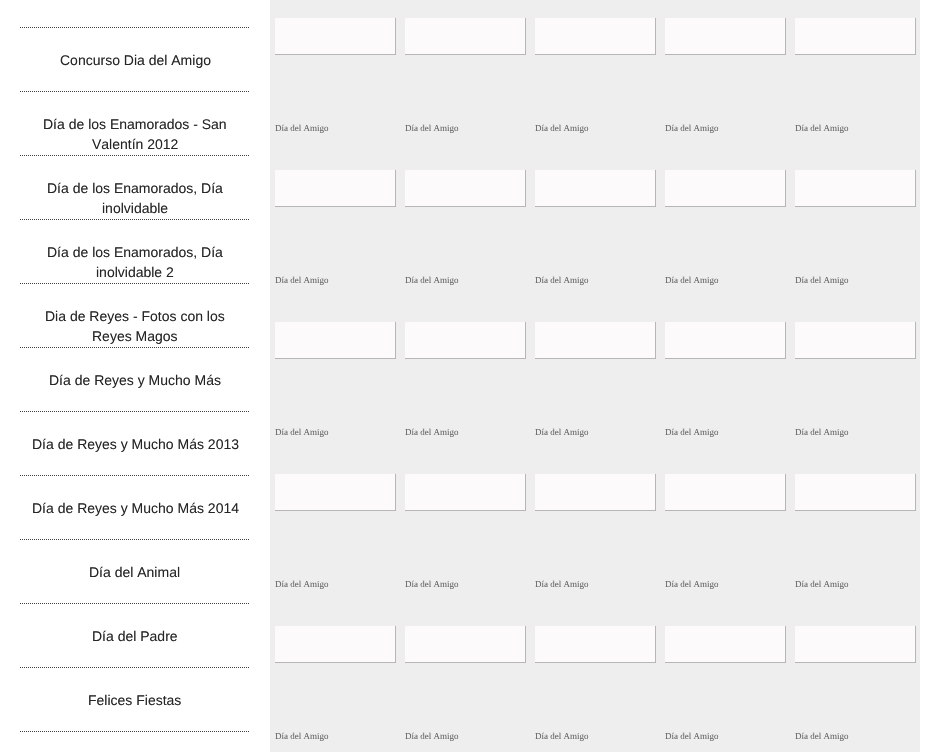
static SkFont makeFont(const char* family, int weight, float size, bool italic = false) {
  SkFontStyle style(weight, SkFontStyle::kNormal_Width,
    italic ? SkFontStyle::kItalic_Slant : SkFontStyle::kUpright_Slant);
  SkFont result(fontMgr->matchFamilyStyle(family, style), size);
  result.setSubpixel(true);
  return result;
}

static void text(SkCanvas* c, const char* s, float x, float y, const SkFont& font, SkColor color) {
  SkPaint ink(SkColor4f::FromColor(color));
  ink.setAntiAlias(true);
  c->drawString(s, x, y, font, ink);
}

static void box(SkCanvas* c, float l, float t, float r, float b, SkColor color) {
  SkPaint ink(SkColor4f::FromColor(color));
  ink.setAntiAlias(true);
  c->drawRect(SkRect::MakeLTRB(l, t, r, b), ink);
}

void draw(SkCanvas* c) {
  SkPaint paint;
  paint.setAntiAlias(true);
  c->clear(0xffffffff);
  paint.setStyle(SkPaint::kStroke_Style);
  paint.setStrokeWidth(1);
  paint.setColor(0xff3e3e3c);
  paint.setPathEffect(SkDashPathEffect::Make({{1, 1}}, 0));
  c->drawPath(SkPathBuilder().moveTo(20, 27.5f).lineTo(250, 27.5f).detach(), paint);
  paint.setPathEffect(nullptr);
  paint.setPathEffect(SkDashPathEffect::Make({{1, 1}}, 0));
  c->drawPath(SkPathBuilder().moveTo(20, 91.5f).lineTo(250, 91.5f).detach(), paint);
  paint.setPathEffect(nullptr);
  SkFont face1 = makeFont("Liberation Sans", 400, 14);
  text(c, "Concurso Dia del Amigo", 60, 65, face1, 0xff262626);
  paint.setPathEffect(SkDashPathEffect::Make({{1, 1}}, 0));
  c->drawPath(SkPathBuilder().moveTo(20, 155.5f).lineTo(250, 155.5f).detach(), paint);
  paint.setPathEffect(nullptr);
  text(c, "Día de los Enamorados - San", 43, 129, face1, 0xff262626);
  text(c, "Valentín 2012", 92, 149, face1, 0xff262626);
  paint.setPathEffect(SkDashPathEffect::Make({{1, 1}}, 0));
  c->drawPath(SkPathBuilder().moveTo(20, 219.5f).lineTo(250, 219.5f).detach(), paint);
  paint.setPathEffect(nullptr);
  text(c, "Día de los Enamorados, Día", 47, 193, face1, 0xff262626);
  text(c, "inolvidable", 102, 213, face1, 0xff262626);
  paint.setPathEffect(SkDashPathEffect::Make({{1, 1}}, 0));
  c->drawPath(SkPathBuilder().moveTo(20, 283.5f).lineTo(250, 283.5f).detach(), paint);
  paint.setPathEffect(nullptr);
  text(c, "Día de los Enamorados, Día", 47, 257, face1, 0xff262626);
  text(c, "inolvidable 2", 96, 277, face1, 0xff262626);
  paint.setPathEffect(SkDashPathEffect::Make({{1, 1}}, 0));
  c->drawPath(SkPathBuilder().moveTo(20, 347.5f).lineTo(250, 347.5f).detach(), paint);
  paint.setPathEffect(nullptr);
  text(c, "Dia de Reyes - Fotos con los", 45, 321, face1, 0xff262626);
  text(c, "Reyes Magos", 92, 341, face1, 0xff262626);
  paint.setPathEffect(SkDashPathEffect::Make({{1, 1}}, 0));
  c->drawPath(SkPathBuilder().moveTo(20, 411.5f).lineTo(250, 411.5f).detach(), paint);
  paint.setPathEffect(nullptr);
  text(c, "Día de Reyes y Mucho Más", 49, 385, face1, 0xff262626);
  paint.setPathEffect(SkDashPathEffect::Make({{1, 1}}, 0));
  c->drawPath(SkPathBuilder().moveTo(20, 475.5f).lineTo(250, 475.5f).detach(), paint);
  paint.setPathEffect(nullptr);
  text(c, "Día de Reyes y Mucho Más 2013", 32, 449, face1, 0xff262626);
  paint.setPathEffect(SkDashPathEffect::Make({{1, 1}}, 0));
  c->drawPath(SkPathBuilder().moveTo(20, 539.5f).lineTo(250, 539.5f).detach(), paint);
  paint.setPathEffect(nullptr);
  text(c, "Día de Reyes y Mucho Más 2014", 32, 513, face1, 0xff262626);
  paint.setPathEffect(SkDashPathEffect::Make({{1, 1}}, 0));
  c->drawPath(SkPathBuilder().moveTo(20, 603.5f).lineTo(250, 603.5f).detach(), paint);
  paint.setPathEffect(nullptr);
  text(c, "Día del Animal", 89, 577, face1, 0xff262626);
  paint.setPathEffect(SkDashPathEffect::Make({{1, 1}}, 0));
  c->drawPath(SkPathBuilder().moveTo(20, 667.5f).lineTo(250, 667.5f).detach(), paint);
  paint.setPathEffect(nullptr);
  text(c, "Día del Padre", 92, 641, face1, 0xff262626);
  paint.setPathEffect(SkDashPathEffect::Make({{1, 1}}, 0));
  c->drawPath(SkPathBuilder().moveTo(20, 731.5f).lineTo(250, 731.5f).detach(), paint);
  paint.setPathEffect(nullptr);
  text(c, "Felices Fiestas", 88, 705, face1, 0xff262626);
  box(c, 270, 0, 920, 752, 0xffeeeeee);
  box(c, 275, 18, 395, 54, 0xfffcfafb);
  box(c, 395, 18, 396, 55, 0xffb6b6b6);
  box(c, 275, 54, 396, 55, 0xffb6b6b6);
  SkFont face2 = makeFont("Liberation Serif", 400, 9);
  text(c, "Día del Amigo", 275, 131, face2, 0xff666666);
  box(c, 405, 18, 525, 54, 0xfffcfafb);
  box(c, 525, 18, 526, 55, 0xffb6b6b6);
  box(c, 405, 54, 526, 55, 0xffb6b6b6);
  text(c, "Día del Amigo", 405, 131, face2, 0xff666666);
  box(c, 535, 18, 655, 54, 0xfffcfafb);
  box(c, 655, 18, 656, 55, 0xffb6b6b6);
  box(c, 535, 54, 656, 55, 0xffb6b6b6);
  text(c, "Día del Amigo", 535, 131, face2, 0xff666666);
  box(c, 665, 18, 785, 54, 0xfffcfafb);
  box(c, 785, 18, 786, 55, 0xffb6b6b6);
  box(c, 665, 54, 786, 55, 0xffb6b6b6);
  text(c, "Día del Amigo", 665, 131, face2, 0xff666666);
  box(c, 795, 18, 915, 54, 0xfffcfafb);
  box(c, 915, 18, 916, 55, 0xffb6b6b6);
  box(c, 795, 54, 916, 55, 0xffb6b6b6);
  text(c, "Día del Amigo", 795, 131, face2, 0xff666666);
  box(c, 275, 170, 395, 206, 0xfffcfafb);
  box(c, 395, 170, 396, 207, 0xffb6b6b6);
  box(c, 275, 206, 396, 207, 0xffb6b6b6);
  text(c, "Día del Amigo", 275, 283, face2, 0xff666666);
  box(c, 405, 170, 525, 206, 0xfffcfafb);
  box(c, 525, 170, 526, 207, 0xffb6b6b6);
  box(c, 405, 206, 526, 207, 0xffb6b6b6);
  text(c, "Día del Amigo", 405, 283, face2, 0xff666666);
  box(c, 535, 170, 655, 206, 0xfffcfafb);
  box(c, 655, 170, 656, 207, 0xffb6b6b6);
  box(c, 535, 206, 656, 207, 0xffb6b6b6);
  text(c, "Día del Amigo", 535, 283, face2, 0xff666666);
  box(c, 665, 170, 785, 206, 0xfffcfafb);
  box(c, 785, 170, 786, 207, 0xffb6b6b6);
  box(c, 665, 206, 786, 207, 0xffb6b6b6);
  text(c, "Día del Amigo", 665, 283, face2, 0xff666666);
  box(c, 795, 170, 915, 206, 0xfffcfafb);
  box(c, 915, 170, 916, 207, 0xffb6b6b6);
  box(c, 795, 206, 916, 207, 0xffb6b6b6);
  text(c, "Día del Amigo", 795, 283, face2, 0xff666666);
  box(c, 275, 322, 395, 358, 0xfffcfafb);
  box(c, 395, 322, 396, 359, 0xffb6b6b6);
  box(c, 275, 358, 396, 359, 0xffb6b6b6);
  text(c, "Día del Amigo", 275, 435, face2, 0xff666666);
  box(c, 405, 322, 525, 358, 0xfffcfafb);
  box(c, 525, 322, 526, 359, 0xffb6b6b6);
  box(c, 405, 358, 526, 359, 0xffb6b6b6);
  text(c, "Día del Amigo", 405, 435, face2, 0xff666666);
  box(c, 535, 322, 655, 358, 0xfffcfafb);
  box(c, 655, 322, 656, 359, 0xffb6b6b6);
  box(c, 535, 358, 656, 359, 0xffb6b6b6);
  text(c, "Día del Amigo", 535, 435, face2, 0xff666666);
  box(c, 665, 322, 785, 358, 0xfffcfafb);
  box(c, 785, 322, 786, 359, 0xffb6b6b6);
  box(c, 665, 358, 786, 359, 0xffb6b6b6);
  text(c, "Día del Amigo", 665, 435, face2, 0xff666666);
  box(c, 795, 322, 915, 358, 0xfffcfafb);
  box(c, 915, 322, 916, 359, 0xffb6b6b6);
  box(c, 795, 358, 916, 359, 0xffb6b6b6);
  text(c, "Día del Amigo", 795, 435, face2, 0xff666666);
  box(c, 275, 474, 395, 510, 0xfffcfafb);
  box(c, 395, 474, 396, 511, 0xffb6b6b6);
  box(c, 275, 510, 396, 511, 0xffb6b6b6);
  text(c, "Día del Amigo", 275, 587, face2, 0xff666666);
  box(c, 405, 474, 525, 510, 0xfffcfafb);
  box(c, 525, 474, 526, 511, 0xffb6b6b6);
  box(c, 405, 510, 526, 511, 0xffb6b6b6);
  text(c, "Día del Amigo", 405, 587, face2, 0xff666666);
  box(c, 535, 474, 655, 510, 0xfffcfafb);
  box(c, 655, 474, 656, 511, 0xffb6b6b6);
  box(c, 535, 510, 656, 511, 0xffb6b6b6);
  text(c, "Día del Amigo", 535, 587, face2, 0xff666666);
  box(c, 665, 474, 785, 510, 0xfffcfafb);
  box(c, 785, 474, 786, 511, 0xffb6b6b6);
  box(c, 665, 510, 786, 511, 0xffb6b6b6);
  text(c, "Día del Amigo", 665, 587, face2, 0xff666666);
  box(c, 795, 474, 915, 510, 0xfffcfafb);
  box(c, 915, 474, 916, 511, 0xffb6b6b6);
  box(c, 795, 510, 916, 511, 0xffb6b6b6);
  text(c, "Día del Amigo", 795, 587, face2, 0xff666666);
  box(c, 275, 626, 395, 662, 0xfffcfafb);
  box(c, 395, 626, 396, 663, 0xffb6b6b6);
  box(c, 275, 662, 396, 663, 0xffb6b6b6);
  text(c, "Día del Amigo", 275, 739, face2, 0xff666666);
  box(c, 405, 626, 525, 662, 0xfffcfafb);
  box(c, 525, 626, 526, 663, 0xffb6b6b6);
  box(c, 405, 662, 526, 663, 0xffb6b6b6);
  text(c, "Día del Amigo", 405, 739, face2, 0xff666666);
  box(c, 535, 626, 655, 662, 0xfffcfafb);
  box(c, 655, 626, 656, 663, 0xffb6b6b6);
  box(c, 535, 662, 656, 663, 0xffb6b6b6);
  text(c, "Día del Amigo", 535, 739, face2, 0xff666666);
  box(c, 665, 626, 785, 662, 0xfffcfafb);
  box(c, 785, 626, 786, 663, 0xffb6b6b6);
  box(c, 665, 662, 786, 663, 0xffb6b6b6);
  text(c, "Día del Amigo", 665, 739, face2, 0xff666666);
  box(c, 795, 626, 915, 662, 0xfffcfafb);
  box(c, 915, 626, 916, 663, 0xffb6b6b6);
  box(c, 795, 662, 916, 663, 0xffb6b6b6);
  text(c, "Día del Amigo", 795, 739, face2, 0xff666666);
}
